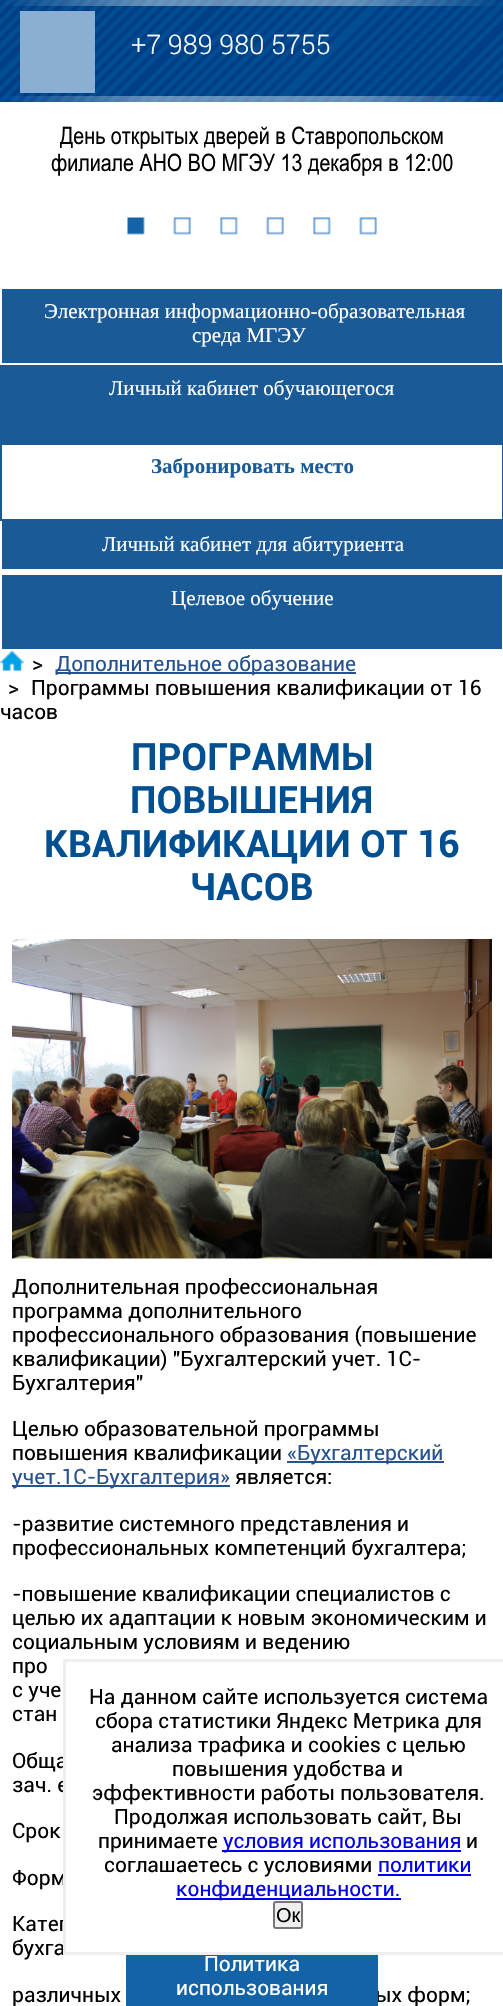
static SkFont makeFont(const char* family, int weight, float size, bool italic = false) {
  SkFontStyle style(weight, SkFontStyle::kNormal_Width,
    italic ? SkFontStyle::kItalic_Slant : SkFontStyle::kUpright_Slant);
  SkFont result(fontMgr->matchFamilyStyle(family, style), size);
  result.setSubpixel(true);
  return result;
}

static void text(SkCanvas* c, const char* s, float x, float y, const SkFont& font, SkColor color) {
  SkPaint ink(SkColor4f::FromColor(color));
  ink.setAntiAlias(true);
  c->drawString(s, x, y, font, ink);
}

static void box(SkCanvas* c, float l, float t, float r, float b, SkColor color) {
  SkPaint ink(SkColor4f::FromColor(color));
  ink.setAntiAlias(true);
  c->drawRect(SkRect::MakeLTRB(l, t, r, b), ink);
}

static void picture(SkCanvas* c, const char* path, float l, float t, float r, float b) {
  auto image = SkImages::DeferredFromEncodedData(SkData::MakeFromFileName(path));
  c->drawImageRect(image, SkRect::MakeLTRB(l, t, r, b), SkSamplingOptions());
}

void draw(SkCanvas* c) {
  SkPaint paint;
  paint.setAntiAlias(true);
  c->clear(0xffffffff);
  {
    const SkColor colors[] = {0xff003f87, 0xff003f87, 0xff004e91, 0xff004e91, 0xff003f87, 0xff003f87, 0xff004e91, 0xff004e91, 0xff003f87, 0xff003f87, 0xff004e91, 0xff004e91, 0xff003f87, 0xff003f87, 0xff004e91, 0xff004e91, 0xff003f87, 0xff003f87, 0xff004e91, 0xff004e91, 0xff003f87, 0xff003f87, 0xff004e91, 0xff004e91, 0xff003f87, 0xff003f87, 0xff004e91, 0xff004e91, 0xff003f87, 0xff003f87, 0xff004e91, 0xff004e91, 0xff003f87, 0xff003f87, 0xff004e91, 0xff004e91, 0xff003f87, 0xff003f87, 0xff004e91, 0xff004e91, 0xff003f87, 0xff003f87, 0xff004e91, 0xff004e91, 0xff003f87, 0xff003f87, 0xff004e91, 0xff004e91, 0xff003f87, 0xff003f87, 0xff004e91, 0xff004e91, 0xff003f87, 0xff003f87, 0xff004e91, 0xff004e91, 0xff003f87, 0xff003f87, 0xff004e91, 0xff004e91, 0xff003f87, 0xff003f87, 0xff004e91, 0xff004e91, 0xff003f87, 0xff003f87, 0xff004e91, 0xff004e91, 0xff003f87, 0xff003f87, 0xff004e91, 0xff004e91, 0xff003f87, 0xff003f87, 0xff004e91, 0xff004e91, 0xff003f87, 0xff003f87, 0xff004e91, 0xff004e91, 0xff003f87, 0xff003f87, 0xff004e91, 0xff004e91, 0xff003f87, 0xff003f87, 0xff004e91, 0xff004e91, 0xff003f87, 0xff003f87, 0xff004e91, 0xff004e91, 0xff003f87, 0xff003f87, 0xff004e91, 0xff004e91, 0xff003f87, 0xff003f87, 0xff004e91, 0xff004e91, 0xff003f87, 0xff003f87, 0xff004e91, 0xff004e91, 0xff003f87, 0xff003f87, 0xff004e91, 0xff004e91, 0xff003f87, 0xff003f87, 0xff004e91, 0xff004e91, 0xff003f87, 0xff003f87, 0xff004e91, 0xff004e91, 0xff003f87, 0xff003f87, 0xff004e91, 0xff004e91, 0xff003f87, 0xff003f87, 0xff004e91, 0xff004e91, 0xff003f87, 0xff003f87, 0xff004e91, 0xff004e91, 0xff003f87, 0xff003f87, 0xff004e91, 0xff004e91, 0xff003f87, 0xff003f87, 0xff004e91, 0xff004e91, 0xff003f87, 0xff003f87, 0xff004e91, 0xff004e91, 0xff003f87, 0xff003f87, 0xff004e91, 0xff004e91, 0xff003f87, 0xff003f87, 0xff004e91, 0xff004e91, 0xff003f87, 0xff003f87, 0xff004e91, 0xff004e91, 0xff003f87, 0xff003f87, 0xff004e91, 0xff004e91, 0xff003f87, 0xff003f87, 0xff004e91, 0xff004e91, 0xff003f87, 0xff003f87, 0xff004e91, 0xff004e91, 0xff003f87, 0xff003f87, 0xff004e91, 0xff004e91, 0xff003f87, 0xff003f87, 0xff004e91, 0xff004e91, 0xff003f87, 0xff003f87, 0xff004e91, 0xff004e91, 0xff003f87, 0xff003f87, 0xff004e91, 0xff004e91, 0xff003f87, 0xff003f87, 0xff004e91, 0xff004e91, 0xff003f87, 0xff003f87, 0xff004e91, 0xff004e91, 0xff003f87, 0xff003f87, 0xff004e91, 0xff004e91};
    const float stops[] = {0, 0.01f, 0.01f, 0.02f, 0.02f, 0.03f, 0.03f, 0.04f, 0.04f, 0.05f, 0.05f, 0.06f, 0.06f, 0.07f, 0.07f, 0.08f, 0.08f, 0.09f, 0.09f, 0.1f, 0.1f, 0.11f, 0.11f, 0.12f, 0.12f, 0.14f, 0.14f, 0.15f, 0.15f, 0.16f, 0.16f, 0.17f, 0.17f, 0.18f, 0.18f, 0.19f, 0.19f, 0.2f, 0.2f, 0.21f, 0.21f, 0.22f, 0.22f, 0.23f, 0.23f, 0.24f, 0.24f, 0.25f, 0.25f, 0.26f, 0.26f, 0.27f, 0.27f, 0.28f, 0.28f, 0.29f, 0.29f, 0.3f, 0.3f, 0.31f, 0.31f, 0.32f, 0.32f, 0.33f, 0.33f, 0.34f, 0.34f, 0.35f, 0.35f, 0.36f, 0.36f, 0.38f, 0.38f, 0.39f, 0.39f, 0.4f, 0.4f, 0.41f, 0.41f, 0.42f, 0.42f, 0.43f, 0.43f, 0.44f, 0.44f, 0.45f, 0.45f, 0.46f, 0.46f, 0.47f, 0.47f, 0.48f, 0.48f, 0.49f, 0.49f, 0.5f, 0.5f, 0.51f, 0.51f, 0.52f, 0.52f, 0.53f, 0.53f, 0.54f, 0.54f, 0.55f, 0.55f, 0.56f, 0.56f, 0.57f, 0.57f, 0.58f, 0.58f, 0.59f, 0.59f, 0.6f, 0.6f, 0.61f, 0.61f, 0.62f, 0.62f, 0.64f, 0.64f, 0.65f, 0.65f, 0.66f, 0.66f, 0.67f, 0.67f, 0.68f, 0.68f, 0.69f, 0.69f, 0.7f, 0.7f, 0.71f, 0.71f, 0.72f, 0.72f, 0.73f, 0.73f, 0.74f, 0.74f, 0.75f, 0.75f, 0.76f, 0.76f, 0.77f, 0.77f, 0.78f, 0.78f, 0.79f, 0.79f, 0.8f, 0.8f, 0.81f, 0.81f, 0.82f, 0.82f, 0.83f, 0.83f, 0.84f, 0.84f, 0.85f, 0.85f, 0.86f, 0.86f, 0.87f, 0.88f, 0.89f, 0.89f, 0.9f, 0.9f, 0.91f, 0.91f, 0.92f, 0.92f, 0.93f, 0.93f, 0.94f, 0.94f, 0.95f, 0.95f, 0.96f, 0.96f, 0.97f, 0.97f, 0.98f, 0.98f, 0.99f, 0.99f, 1};
    const SkPoint ends[] = {{404, 203}, {98, -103}};
    paint.setShader(SkGradientShader::MakeLinear(ends, colors, stops, 192, SkTileMode::kClamp));
    paint.setAlpha(255);
  }
  c->drawRect(SkRect::MakeLTRB(0, 0, 503, 102), paint);
  {
    const SkColor colors[] = {0x00ffffff, 0x66ffffff, 0x66ffffff, 0x00ffffff};
    const float stops[] = {0, 0.3f, 0.7f, 1};
    const SkPoint ends[] = {{0, 3}, {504, 3}};
    paint.setShader(SkGradientShader::MakeLinear(ends, colors, stops, 4, SkTileMode::kClamp));
    paint.setAlpha(255);
  }
  c->drawRect(SkRect::MakeLTRB(0, 0, 503, 6), paint);
  box(c, 20, 11, 95, 93, 0xff8aafd2);
  SkFont face1 = makeFont("Roboto", 300, 27);
  text(c, "+7 989 980 5755", 131, 54, face1, 0xffffffff);
  {
    const SkColor colors[] = {0x00ffffff, 0x66ffffff, 0x66ffffff, 0x00ffffff};
    const float stops[] = {0, 0.3f, 0.7f, 1};
    const SkPoint ends[] = {{0, 99}, {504, 99}};
    paint.setShader(SkGradientShader::MakeLinear(ends, colors, stops, 4, SkTileMode::kClamp));
    paint.setAlpha(255);
  }
  c->drawRect(SkRect::MakeLTRB(0, 96, 503, 102), paint);
  SkFont face2 = makeFont("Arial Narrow", 400, 24);
  text(c, "День открытых дверей в Ставропольском", 60, 144, face2, 0xff000000);
  text(c, "филиале АНО ВО МГЭУ 13 декабря в 12:00", 51, 171, face2, 0xff000000);
  picture(c, "img_01.png", 127, 217, 145, 235);
  picture(c, "img_02.png", 173, 217, 191, 235);
  picture(c, "img_03.png", 220, 217, 238, 235);
  picture(c, "img_02.png", 266, 217, 284, 235);
  picture(c, "img_03.png", 313, 217, 331, 235);
  picture(c, "img_04.png", 359, 217, 377, 235);
  box(c, 2, 289, 502, 363, 0xff1a5a97);
  SkFont face3 = makeFont("Liberation Serif", 400, 21);
  text(c, "Электронная информационно-образовательная", 44, 318, face3, 0xffffffff);
  text(c, "среда МГЭУ", 192, 342, face3, 0xffffffff);
  box(c, 0, 365, 503, 443, 0xff1a5a97);
  text(c, "Личный кабинет обучающегося", 109, 395, face3, 0xffffffff);
  paint.setStyle(SkPaint::kStroke_Style);
  paint.setStrokeWidth(2);
  paint.setShader(nullptr);
  paint.setColor(0xff1a5a97);
  c->drawRect(SkRect::MakeLTRB(1, 444, 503, 520), paint);
  SkFont face4 = makeFont("Liberation Serif", 700, 21);
  text(c, "Забронировать место", 151, 473, face4, 0xff1a5a97);
  box(c, 2, 521, 503, 569, 0xff1a5a97);
  text(c, "Личный кабинет для абитуриента", 102, 551, face3, 0xffffffff);
  box(c, 2, 575, 502, 649, 0xff1a5a97);
  text(c, "Целевое обучение", 171, 605, face3, 0xffffffff);
  picture(c, "img_05.png", 0, 651, 24, 671);
  SkFont face5 = makeFont("Roboto", 400, 21);
  text(c, ">", 32, 671, face5, 0xff000000);
  box(c, 56, 672, 356, 674, 0xff28528e);
  text(c, "Дополнительное образование", 55, 671, face5, 0xff28528e);
  text(c, ">", 8, 695, face5, 0xff000000);
  text(c, "Программы повышения квалификации от 16", 31, 695, face5, 0xff000000);
  text(c, "часов", 0, 719, face5, 0xff000000);
  SkFont face6 = makeFont("Roboto", 700, 37.5f);
  text(c, "ПРОГРАММЫ", 131, 770, face6, 0xff004f91);
  text(c, "ПОВЫШЕНИЯ", 130, 813, face6, 0xff004f91);
  text(c, "КВАЛИФИКАЦИИ ОТ 16", 44, 857, face6, 0xff004f91);
  text(c, "ЧАСОВ", 190, 900, face6, 0xff004f91);
  picture(c, "img_06.png", 12, 939, 492, 1259);
  text(c, "Дополнительная профессиональная", 12, 1294, face5, 0xff000000);
  text(c, "программа дополнительного", 12, 1318, face5, 0xff000000);
  text(c, "профессионального образования (повышение", 12, 1342, face5, 0xff000000);
  text(c, "квалификации) \"Бухгалтерский учет. 1С-", 12, 1366, face5, 0xff000000);
  text(c, "Бухгалтерия\"", 12, 1390, face5, 0xff000000);
  text(c, "Целью образовательной программы", 12, 1436, face5, 0xff000000);
  text(c, "повышения квалификации", 12, 1460, face5, 0xff000000);
  box(c, 287, 1461, 444, 1463, 0xff28528e);
  text(c, "«Бухгалтерский", 287, 1460, face5, 0xff28528e);
  box(c, 12, 1485, 230, 1487, 0xff28528e);
  text(c, "учет.1С-Бухгалтерия»", 12, 1484, face5, 0xff28528e);
  text(c, "является:", 235, 1484, face5, 0xff000000);
  text(c, "-развитие системного представления и", 12, 1531, face5, 0xff000000);
  text(c, "профессиональных компетенций бухгалтера;", 12, 1555, face5, 0xff000000);
  text(c, "-повышение квалификации специалистов c", 12, 1601, face5, 0xff000000);
  text(c, "целью их адаптации к новым экономическим и", 12, 1625, face5, 0xff000000);
  text(c, "социальным условиям и ведению", 12, 1649, face5, 0xff000000);
  text(c, "про", 12, 1673, face5, 0xff000000);
  text(c, "с уче", 12, 1697, face5, 0xff000000);
  text(c, "стан", 12, 1721, face5, 0xff000000);
  text(c, "Обща", 12, 1768, face5, 0xff000000);
  text(c, "зач. е", 12, 1792, face5, 0xff000000);
  text(c, "Срок", 12, 1838, face5, 0xff000000);
  text(c, "Форм", 12, 1885, face5, 0xff000000);
  text(c, "Катег", 12, 1931, face5, 0xff000000);
  text(c, "бухга", 12, 1955, face5, 0xff000000);
  text(c, "различных", 12, 2002, face5, 0xff000000);
  text(c, "ых форм;", 375, 2002, face5, 0xff000000);
  box(c, 66, 1781, 68, 1922, 0xffffffff);
  paint.setStrokeWidth(3);
  paint.setColor(0xffeeeeee);
  c->drawRect(SkRect::MakeLTRB(64.5f, 1660.5f, 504.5f, 1953.5f), paint);
  text(c, "На данном сайте используется система", 89, 1704, face5, 0xff000000);
  text(c, "сбора статистики Яндекс Метрика для", 95, 1728, face5, 0xff000000);
  text(c, "анализа трафика и cookies с целью", 111, 1752, face5, 0xff000000);
  text(c, "повышения удобства и", 172, 1776, face5, 0xff000000);
  text(c, "эффективности работы пользователя.", 92, 1800, face5, 0xff000000);
  text(c, "Продолжая использовать сайт, Вы", 114, 1824, face5, 0xff000000);
  text(c, "принимаете", 98, 1848, face5, 0xff000000);
  box(c, 222, 1850, 461, 1852, 0xff0000ee);
  text(c, "условия использования", 223, 1848, face5, 0xff0000ee);
  text(c, "и", 466, 1848, face5, 0xff000000);
  text(c, "соглашаетесь с условиями", 104, 1872, face5, 0xff000000);
  text(c, "политики", 378, 1872, face5, 0xff0000ee);
  box(c, 378, 1874, 471, 1876, 0xff0000ee);
  box(c, 176, 1898, 401, 1900, 0xff0000ee);
  text(c, "конфиденциальности.", 176, 1896, face5, 0xff0000ee);
  paint.setStyle(SkPaint::kFill_Style);
  paint.setColor(0xffefefef);
  c->drawRoundRect(SkRect::MakeLTRB(274, 1902, 302, 1928), 2, 2, paint);
  paint.setStyle(SkPaint::kStroke_Style);
  paint.setStrokeWidth(2);
  paint.setColor(0xff767676);
  c->drawRoundRect(SkRect::MakeLTRB(274, 1902, 302, 1928), 2, 2, paint);
  SkFont face7 = makeFont("Liberation Sans", 400, 20);
  text(c, "Ок", 276, 1922, face7, 0xff000000);
  box(c, 126, 1955, 378, 2006, 0xff1263a7);
  text(c, "Политика", 204, 1971, face5, 0xffffffff);
  text(c, "использования", 176, 1995, face5, 0xffffffff);
}
